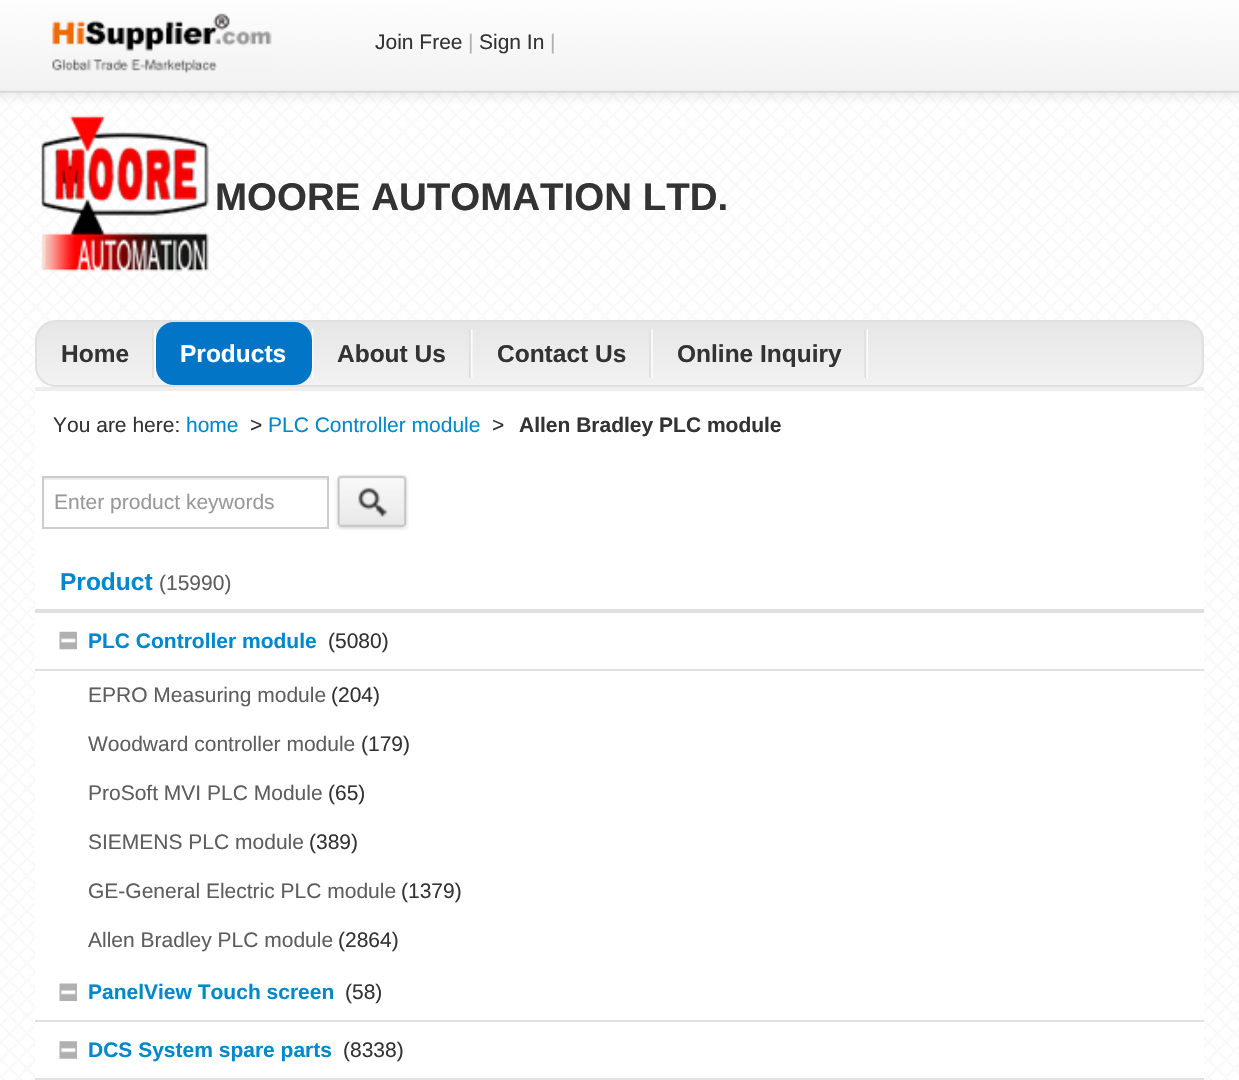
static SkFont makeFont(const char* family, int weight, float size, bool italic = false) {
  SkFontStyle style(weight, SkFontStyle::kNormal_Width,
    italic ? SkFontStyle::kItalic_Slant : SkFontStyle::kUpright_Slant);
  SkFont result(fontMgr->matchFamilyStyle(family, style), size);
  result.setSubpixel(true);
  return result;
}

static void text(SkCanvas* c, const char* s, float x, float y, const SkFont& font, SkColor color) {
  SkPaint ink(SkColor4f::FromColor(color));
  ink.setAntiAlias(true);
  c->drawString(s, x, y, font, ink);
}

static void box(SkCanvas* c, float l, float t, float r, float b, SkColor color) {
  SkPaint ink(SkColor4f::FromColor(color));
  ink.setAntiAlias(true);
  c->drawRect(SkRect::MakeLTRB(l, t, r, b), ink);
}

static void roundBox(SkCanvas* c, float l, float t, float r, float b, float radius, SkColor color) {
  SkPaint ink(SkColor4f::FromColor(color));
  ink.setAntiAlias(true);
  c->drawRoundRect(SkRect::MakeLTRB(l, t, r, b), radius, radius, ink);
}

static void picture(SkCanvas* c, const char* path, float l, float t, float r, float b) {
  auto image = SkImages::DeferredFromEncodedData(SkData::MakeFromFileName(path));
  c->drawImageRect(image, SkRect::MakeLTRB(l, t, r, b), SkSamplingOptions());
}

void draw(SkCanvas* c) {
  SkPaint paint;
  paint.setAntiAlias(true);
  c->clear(0xffffffff);
  picture(c, "img_01.png", 0, 105, 1239, 1080);
  picture(c, "img_02.png", 0, 0, 1239, 105);
  picture(c, "img_03.png", 52, 13, 272, 74);
  SkFont face1 = makeFont("Liberation Sans", 400, 21);
  text(c, "Join Free", 375, 49, face1, 0xff333333);
  text(c, "|", 468, 49, face1, 0xffb2b0b0);
  text(c, "Sign In", 479, 49, face1, 0xff333333);
  text(c, "|", 550, 49, face1, 0xffb2b0b0);
  picture(c, "img_04.png", 41, 115, 209, 272);
  SkFont face2 = makeFont("Liberation Sans", 700, 38.5f);
  text(c, "MOORE AUTOMATION LTD.", 215, 210, face2, 0xff333333);
  c->save();
  c->clipPath(SkPathBuilder().moveTo(56, 320).lineTo(1183, 320).cubicTo(1194.5f, 320, 1204, 329.5f, 1204, 341).lineTo(1204, 366).cubicTo(1204, 377.5f, 1194.5f, 387, 1183, 387).lineTo(56, 387).cubicTo(44.5f, 387, 35, 377.5f, 35, 366).lineTo(35, 341).cubicTo(35, 329.5f, 44.5f, 320, 56, 320).close().detach(), true);
  {
    const SkColor colors[] = {0xffe6e6e6, 0xfff2f2f2};
    const float stops[] = {0, 1};
    const SkPoint ends[] = {{620, 322}, {620, 385}};
    paint.setShader(SkGradientShader::MakeLinear(ends, colors, stops, 2, SkTileMode::kClamp));
    paint.setAlpha(255);
  }
  c->drawRect(SkRect::MakeLTRB(35, 322, 1204, 385), paint);
  c->restore();
  paint.setStyle(SkPaint::kStroke_Style);
  paint.setStrokeWidth(2);
  paint.setShader(nullptr);
  paint.setColor(0xffe0e0e0);
  c->drawRoundRect(SkRect::MakeLTRB(36, 321, 1203, 386), 20, 20, paint);
  picture(c, "img_05.png", 152, 329, 156, 378);
  SkFont face3 = makeFont("Liberation Sans", 700, 24.5f);
  text(c, "Home", 61, 362, face3, 0xff333333);
  picture(c, "img_06.png", 309, 329, 314, 378);
  roundBox(c, 156, 322, 312, 385, 18, 0xff0275c6);
  text(c, "Products", 180, 362, face3, 0xffffffff);
  picture(c, "img_07.png", 469, 329, 473, 378);
  text(c, "About Us", 337, 362, face3, 0xff333333);
  picture(c, "img_05.png", 649, 329, 653, 378);
  text(c, "Contact Us", 497, 362, face3, 0xff333333);
  picture(c, "img_08.png", 864, 329, 868, 378);
  text(c, "Online Inquiry", 677, 362, face3, 0xff333333);
  box(c, 35, 391, 1204, 1078, 0xffffffff);
  box(c, 35, 387, 1204, 391, 0xffeeeeee);
  text(c, "You are here:", 53, 432, face1, 0xff333333);
  text(c, "home", 186, 432, face1, 0xff0088cc);
  text(c, ">", 250, 432, face1, 0xff333333);
  text(c, "PLC Controller module", 268, 432, face1, 0xff0088cc);
  text(c, ">", 492, 432, face1, 0xff333333);
  SkFont face4 = makeFont("Liberation Sans", 700, 21);
  text(c, "Allen Bradley PLC module", 519, 432, face4, 0xff333333);
  box(c, 44, 478, 327, 480, 0xffececec);
  paint.setColor(0xffcccccc);
  c->drawRect(SkRect::MakeLTRB(43, 477, 328, 528), paint);
  text(c, "Enter product keywords", 54, 509, face1, 0xff999999);
  picture(c, "img_09.png", 334, 474, 409, 530);
  box(c, 35, 609, 1204, 613, 0xffe0e0e0);
  text(c, "Product", 60, 590, face3, 0xff0088cc);
  text(c, "(15990)", 159, 590, face1, 0xff5e5e5e);
  picture(c, "img_10.png", 59, 631, 77, 650);
  box(c, 35, 669, 1204, 671, 0xffe1e1e1);
  text(c, "PLC Controller module", 88, 648, face4, 0xff0088cc);
  text(c, "(5080)", 328, 648, face1, 0xff333333);
  text(c, "EPRO Measuring module", 88, 702, face1, 0xff5e5e5e);
  text(c, "(204)", 331, 702, face1, 0xff333333);
  text(c, "Woodward controller module", 88, 751, face1, 0xff5e5e5e);
  text(c, "(179)", 361, 751, face1, 0xff333333);
  text(c, "ProSoft MVI PLC Module", 88, 800, face1, 0xff5e5e5e);
  text(c, "(65)", 328, 800, face1, 0xff333333);
  text(c, "SIEMENS PLC module", 88, 849, face1, 0xff5e5e5e);
  text(c, "(389)", 309, 849, face1, 0xff333333);
  text(c, "GE-General Electric PLC module", 88, 898, face1, 0xff5e5e5e);
  text(c, "(1379)", 401, 898, face1, 0xff333333);
  text(c, "Allen Bradley PLC module", 88, 947, face1, 0xff5e5e5e);
  text(c, "(2864)", 338, 947, face1, 0xff333333);
  picture(c, "img_11.png", 59, 983, 77, 1001);
  box(c, 35, 1020, 1204, 1022, 0xffe1e1e1);
  text(c, "PanelView Touch screen", 88, 999, face4, 0xff0088cc);
  text(c, "(58)", 345, 999, face1, 0xff333333);
  picture(c, "img_12.png", 59, 1041, 77, 1059);
  box(c, 35, 1078, 1204, 1080, 0xffe1e1e1);
  text(c, "DCS System spare parts", 88, 1057, face4, 0xff0088cc);
  text(c, "(8338)", 343, 1057, face1, 0xff333333);
}
